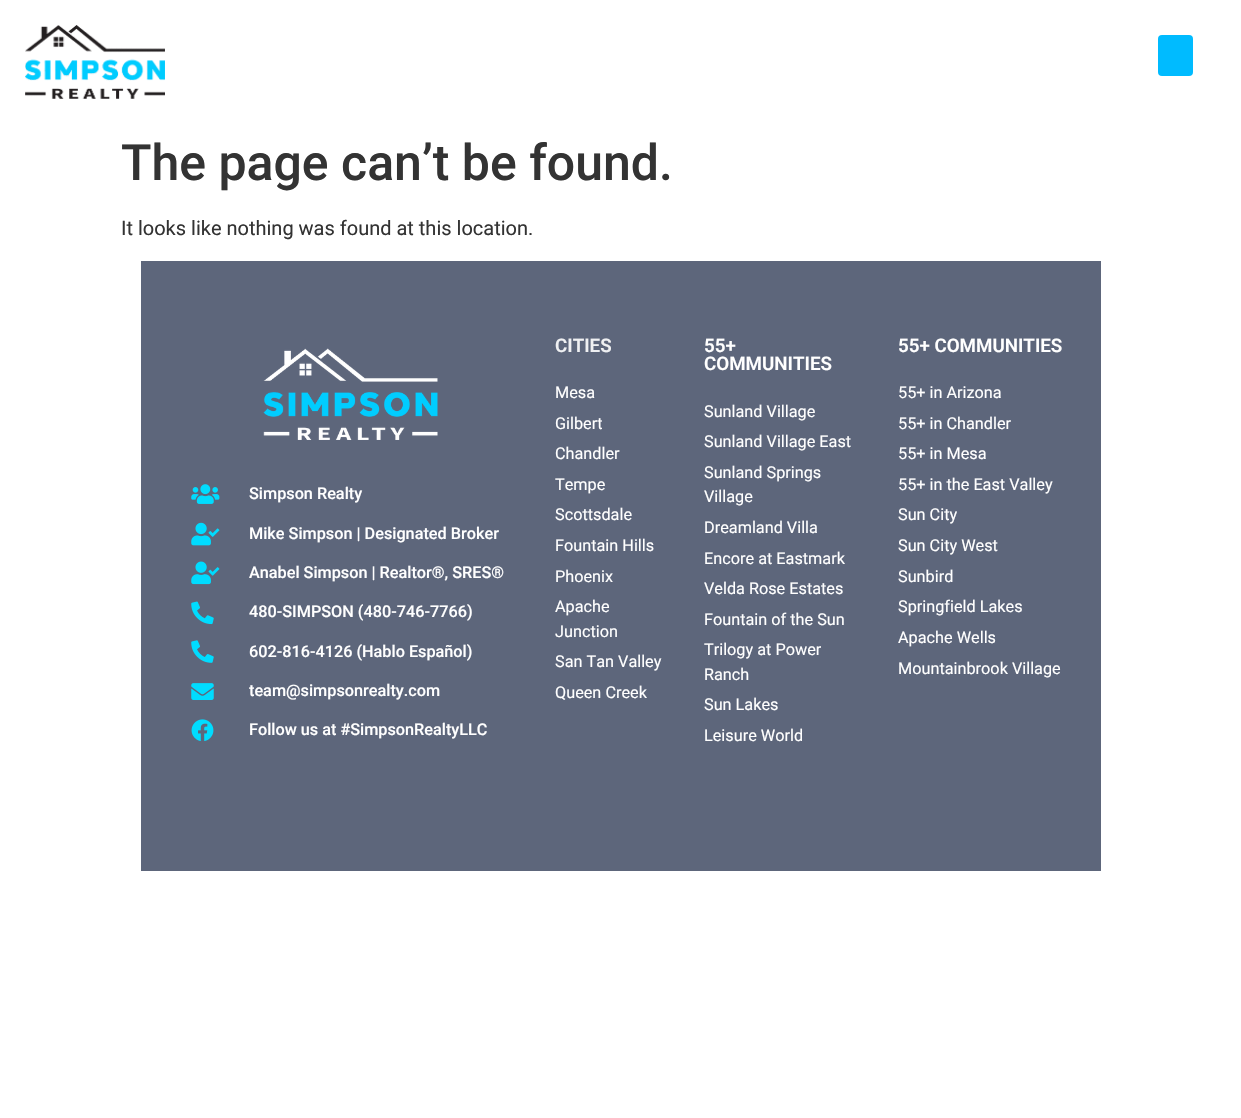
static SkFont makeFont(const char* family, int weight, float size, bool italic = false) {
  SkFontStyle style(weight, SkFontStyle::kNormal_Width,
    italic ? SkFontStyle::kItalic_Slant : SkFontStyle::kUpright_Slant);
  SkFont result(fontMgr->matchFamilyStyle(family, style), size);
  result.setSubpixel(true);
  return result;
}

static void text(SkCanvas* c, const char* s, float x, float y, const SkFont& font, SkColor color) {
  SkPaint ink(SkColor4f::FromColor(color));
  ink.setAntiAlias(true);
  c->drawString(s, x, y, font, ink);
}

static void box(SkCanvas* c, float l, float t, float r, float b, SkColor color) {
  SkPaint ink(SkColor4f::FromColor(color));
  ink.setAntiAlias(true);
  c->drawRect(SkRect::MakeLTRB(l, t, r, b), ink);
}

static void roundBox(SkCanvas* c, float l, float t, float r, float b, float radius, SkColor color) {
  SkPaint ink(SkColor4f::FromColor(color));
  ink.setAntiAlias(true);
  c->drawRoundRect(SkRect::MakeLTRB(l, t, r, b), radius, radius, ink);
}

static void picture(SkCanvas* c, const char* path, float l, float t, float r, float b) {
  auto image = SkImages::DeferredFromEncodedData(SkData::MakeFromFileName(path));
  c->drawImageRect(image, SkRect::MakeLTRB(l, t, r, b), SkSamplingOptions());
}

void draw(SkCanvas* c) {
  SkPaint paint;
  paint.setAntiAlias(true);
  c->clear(0xffffffff);
  picture(c, "img_01.png", 25, 25, 165, 99);
  roundBox(c, 1158, 35, 1193, 76, 4, 0xff00bbff);
  SkFont face1 = makeFont("Roboto", 500, 50);
  text(c, "The page can’t be found.", 121, 180, face1, 0xff333333);
  SkFont face2 = makeFont("Roboto", 400, 20);
  text(c, "It looks like nothing was found at this location.", 121, 235, face2, 0xff333333);
  box(c, 141, 261, 1101, 871, 0xff5d667b);
  picture(c, "img_02.png", 263, 348, 438, 440);
  picture(c, "img_03.png", 191, 484, 220, 504);
  SkFont face3 = makeFont("Roboto", 500, 16.25f);
  text(c, "Simpson Realty", 249, 499, face3, 0xffffffff);
  picture(c, "img_04.png", 191, 522, 220, 546);
  text(c, "Mike Simpson | Designated Broker", 249, 539, face3, 0xffffffff);
  picture(c, "img_05.png", 191, 561, 220, 585);
  text(c, "Anabel Simpson | Realtor®, SRES®", 249, 578, face3, 0xffffffff);
  picture(c, "img_06.png", 191, 601, 214, 625);
  text(c, "480-SIMPSON (480-746-7766)", 249, 617, face3, 0xffffffff);
  picture(c, "img_07.png", 191, 640, 214, 663);
  text(c, "602-816-4126 (Hablo Español)", 249, 657, face3, 0xffffffff);
  picture(c, "img_08.png", 191, 683, 214, 700);
  text(c, "team@simpsonrealty.com", 249, 696, face3, 0xffffffff);
  picture(c, "img_09.png", 191, 719, 214, 741);
  text(c, "Follow us at #SimpsonRealtyLLC", 249, 735, face3, 0xffffffff);
  SkFont face4 = makeFont("Roboto", 600, 18.75f);
  text(c, "CITIES", 555, 352, face4, 0xffeff0f2);
  SkFont face5 = makeFont("Roboto", 400, 16.25f);
  text(c, "Mesa", 555, 398, face5, 0xffffffff);
  text(c, "Gilbert", 555, 429, face5, 0xffffffff);
  text(c, "Chandler", 555, 459, face5, 0xffffffff);
  text(c, "Tempe", 555, 490, face5, 0xffffffff);
  text(c, "Scottsdale", 555, 520, face5, 0xffffffff);
  text(c, "Fountain Hills", 555, 551, face5, 0xffffffff);
  text(c, "Phoenix", 555, 582, face5, 0xffffffff);
  text(c, "Apache", 555, 612, face5, 0xffffffff);
  text(c, "Junction", 555, 637, face5, 0xffffffff);
  text(c, "San Tan Valley", 555, 667, face5, 0xffffffff);
  text(c, "Queen Creek", 555, 698, face5, 0xffffffff);
  text(c, "55+", 704, 352, face4, 0xffffffff);
  text(c, "COMMUNITIES", 704, 370, face4, 0xffffffff);
  text(c, "Sunland Village", 704, 417, face5, 0xffffffff);
  text(c, "Sunland Village East", 704, 447, face5, 0xffffffff);
  text(c, "Sunland Springs", 704, 478, face5, 0xffffffff);
  text(c, "Village", 704, 502, face5, 0xffffffff);
  text(c, "Dreamland Villa", 704, 533, face5, 0xffffffff);
  text(c, "Encore at Eastmark", 704, 564, face5, 0xffffffff);
  text(c, "Velda Rose Estates", 704, 594, face5, 0xffffffff);
  text(c, "Fountain of the Sun", 704, 625, face5, 0xffffffff);
  text(c, "Trilogy at Power", 704, 655, face5, 0xffffffff);
  text(c, "Ranch", 704, 680, face5, 0xffffffff);
  text(c, "Sun Lakes", 704, 710, face5, 0xffffffff);
  text(c, "Leisure World", 704, 741, face5, 0xffffffff);
  text(c, "55+ COMMUNITIES", 898, 352, face4, 0xffffffff);
  text(c, "55+ in Arizona", 898, 398, face5, 0xffffffff);
  text(c, "55+ in Chandler", 898, 429, face5, 0xffffffff);
  text(c, "55+ in Mesa", 898, 459, face5, 0xffffffff);
  text(c, "55+ in the East Valley", 898, 490, face5, 0xffffffff);
  text(c, "Sun City", 898, 520, face5, 0xffffffff);
  text(c, "Sun City West", 898, 551, face5, 0xffffffff);
  text(c, "Sunbird", 898, 582, face5, 0xffffffff);
  text(c, "Springfield Lakes", 898, 612, face5, 0xffffffff);
  text(c, "Apache Wells", 898, 643, face5, 0xffffffff);
  text(c, "Mountainbrook Village", 898, 674, face5, 0xffffffff);
}
